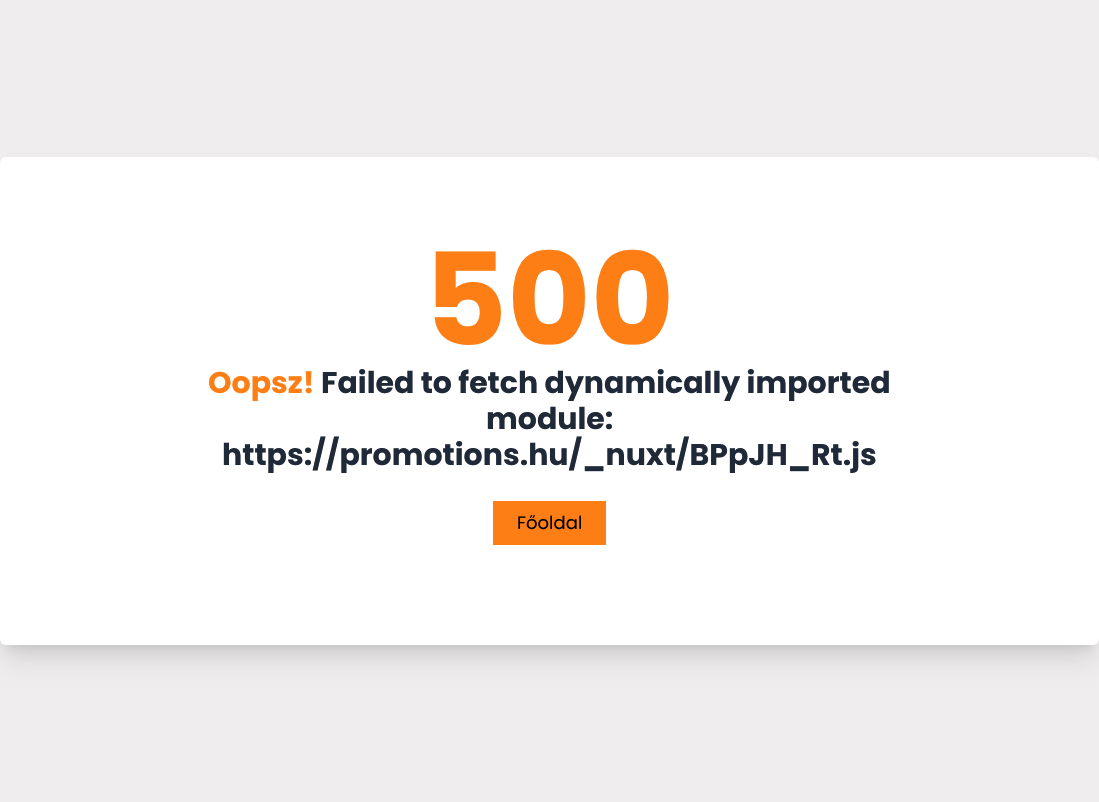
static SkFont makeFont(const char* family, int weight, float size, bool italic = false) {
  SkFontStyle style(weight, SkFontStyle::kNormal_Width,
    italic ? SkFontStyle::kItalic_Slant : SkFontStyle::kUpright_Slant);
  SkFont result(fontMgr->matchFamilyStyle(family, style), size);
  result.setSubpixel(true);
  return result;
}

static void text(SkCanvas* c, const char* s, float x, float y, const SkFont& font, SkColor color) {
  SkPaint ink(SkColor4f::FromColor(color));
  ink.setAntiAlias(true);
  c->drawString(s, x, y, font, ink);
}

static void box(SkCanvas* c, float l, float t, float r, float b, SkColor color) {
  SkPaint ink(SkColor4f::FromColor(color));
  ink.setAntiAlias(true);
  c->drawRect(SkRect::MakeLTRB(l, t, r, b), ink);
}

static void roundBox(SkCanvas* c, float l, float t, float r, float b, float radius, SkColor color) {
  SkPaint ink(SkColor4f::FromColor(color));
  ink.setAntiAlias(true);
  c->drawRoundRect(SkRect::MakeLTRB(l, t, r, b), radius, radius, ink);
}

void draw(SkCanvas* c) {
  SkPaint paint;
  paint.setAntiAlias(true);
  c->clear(0xffefeded);
  paint.setColor(0x1a000000);
  paint.setMaskFilter(SkMaskFilter::MakeBlur(kNormal_SkBlurStyle, 5));
  c->drawRect(SkRect::MakeLTRB(6, 171, 1093, 647), paint);
  paint.setMaskFilter(nullptr);
  paint.setMaskFilter(SkMaskFilter::MakeBlur(kNormal_SkBlurStyle, 12.5f));
  c->drawRoundRect(SkRect::MakeLTRB(5, 182, 1094, 660), 1, 1, paint);
  paint.setMaskFilter(nullptr);
  roundBox(c, 0, 157, 1099, 645, 6, 0xffffffff);
  SkFont face1 = makeFont("Poppins", 700, 128);
  text(c, "500", 424, 345, face1, 0xfffd7e14);
  SkFont face2 = makeFont("Poppins", 700, 30);
  text(c, "Oopsz!", 208, 393, face2, 0xfffd7e14);
  text(c, "Failed to fetch dynamically imported", 321, 393, face2, 0xff1f2937);
  text(c, "module:", 486, 429, face2, 0xff1f2937);
  text(c, "https://promotions.hu/_nuxt/BPpJH_Rt.js", 222, 465, face2, 0xff1f2937);
  box(c, 493, 501, 606, 545, 0xfffd7e14);
  SkFont face3 = makeFont("Poppins", 400, 18);
  text(c, "Főoldal", 517, 529, face3, 0xff000000);
}
